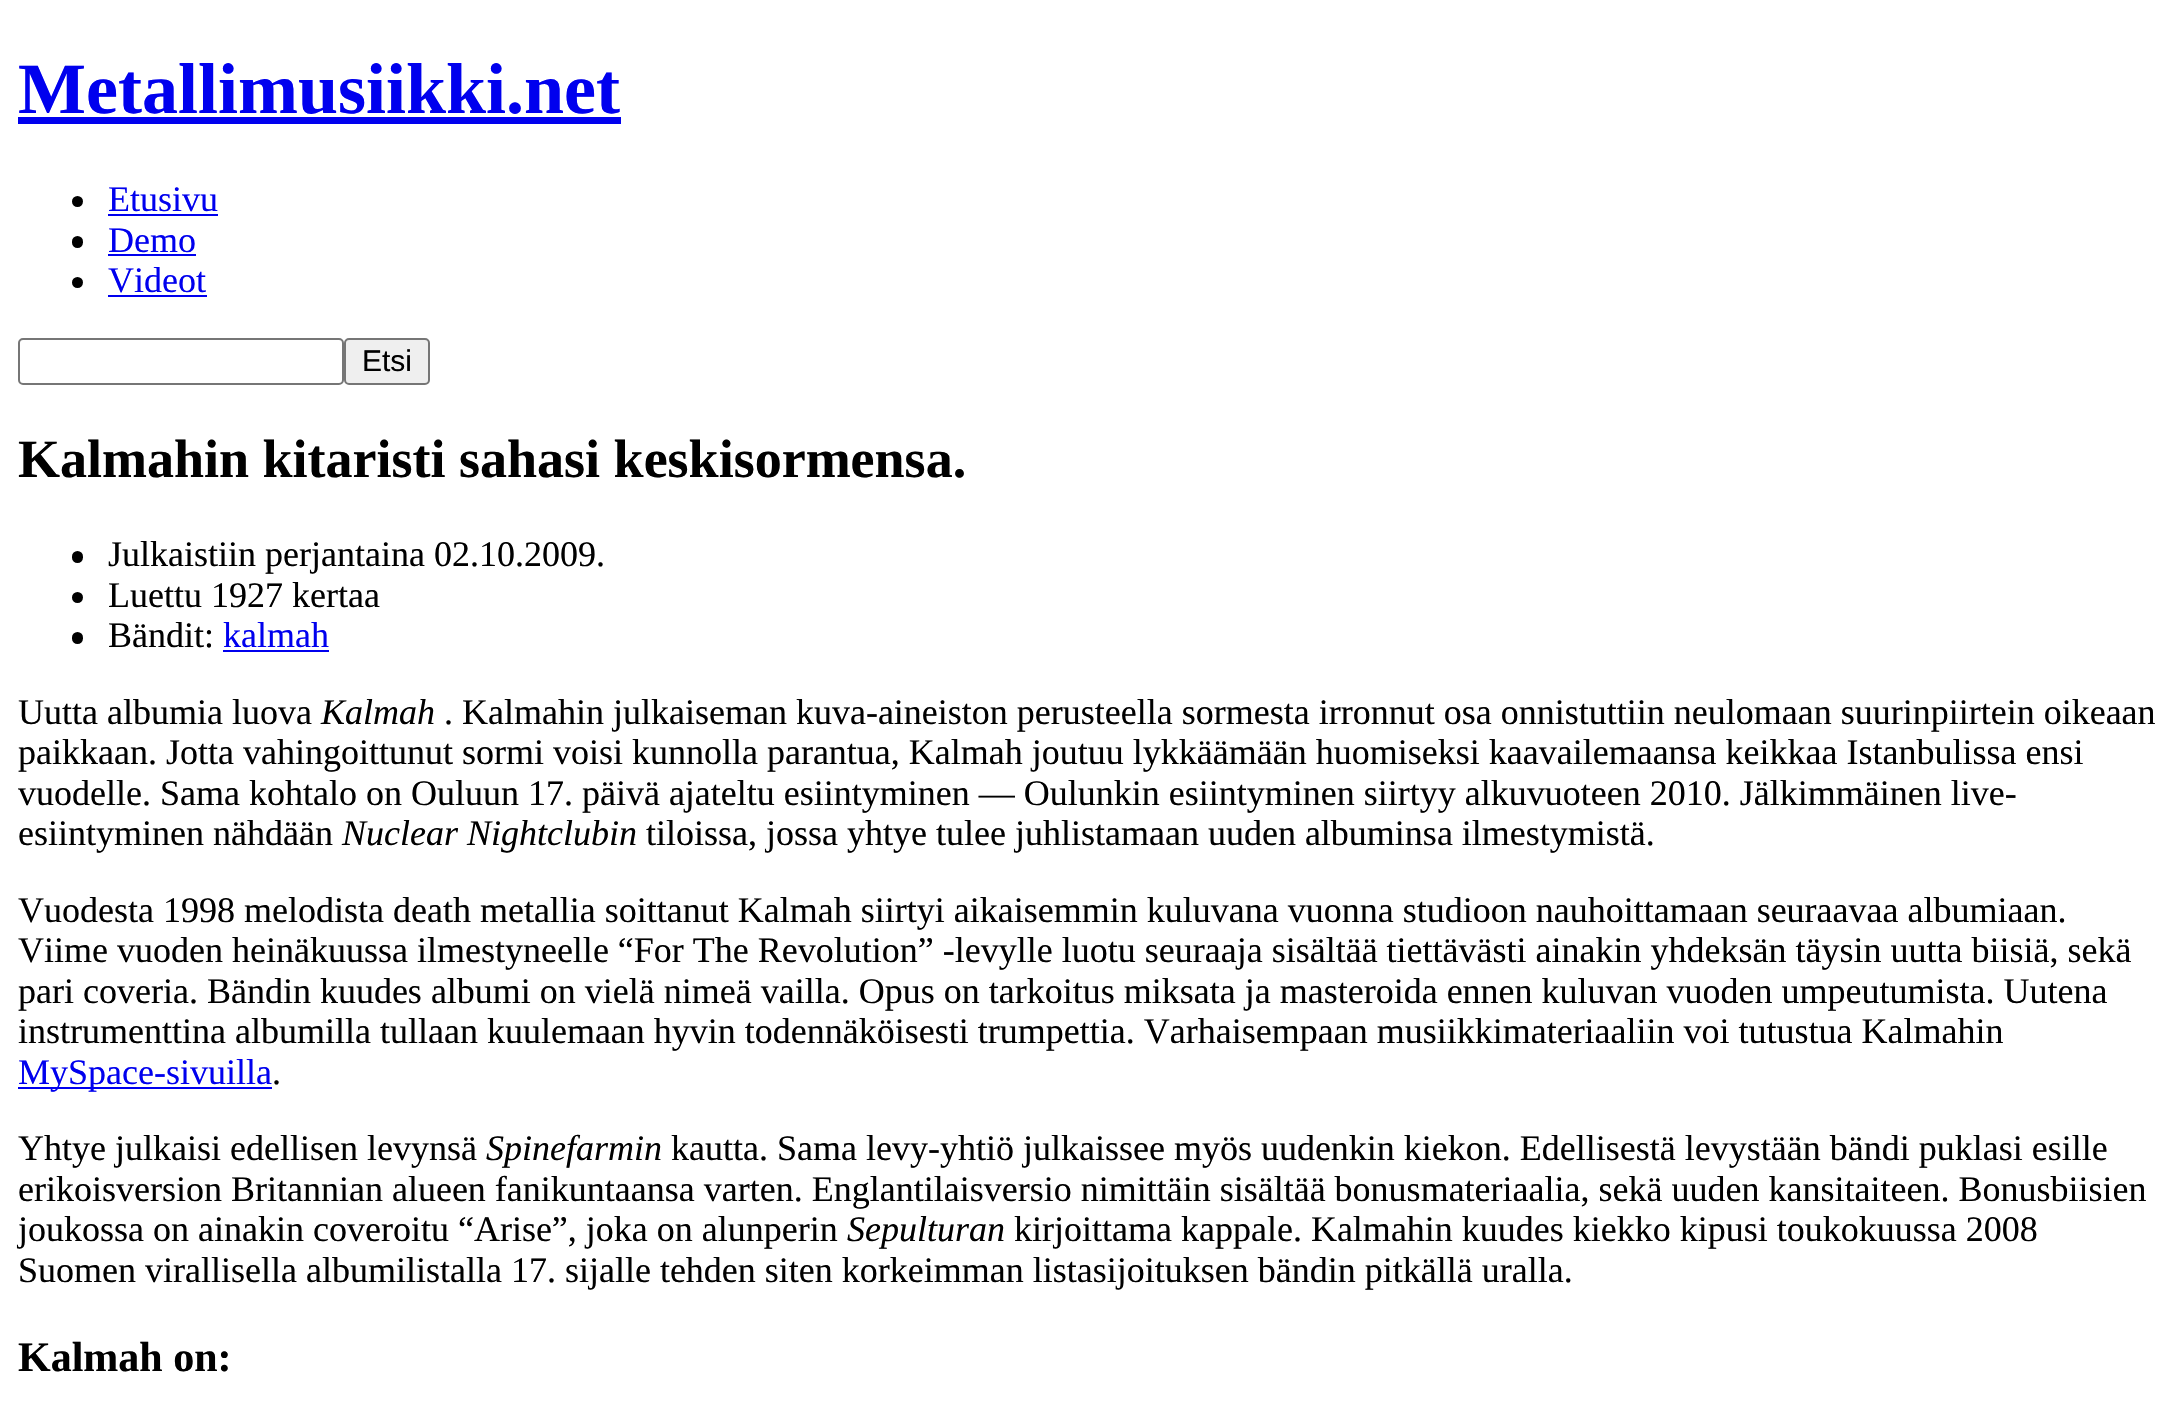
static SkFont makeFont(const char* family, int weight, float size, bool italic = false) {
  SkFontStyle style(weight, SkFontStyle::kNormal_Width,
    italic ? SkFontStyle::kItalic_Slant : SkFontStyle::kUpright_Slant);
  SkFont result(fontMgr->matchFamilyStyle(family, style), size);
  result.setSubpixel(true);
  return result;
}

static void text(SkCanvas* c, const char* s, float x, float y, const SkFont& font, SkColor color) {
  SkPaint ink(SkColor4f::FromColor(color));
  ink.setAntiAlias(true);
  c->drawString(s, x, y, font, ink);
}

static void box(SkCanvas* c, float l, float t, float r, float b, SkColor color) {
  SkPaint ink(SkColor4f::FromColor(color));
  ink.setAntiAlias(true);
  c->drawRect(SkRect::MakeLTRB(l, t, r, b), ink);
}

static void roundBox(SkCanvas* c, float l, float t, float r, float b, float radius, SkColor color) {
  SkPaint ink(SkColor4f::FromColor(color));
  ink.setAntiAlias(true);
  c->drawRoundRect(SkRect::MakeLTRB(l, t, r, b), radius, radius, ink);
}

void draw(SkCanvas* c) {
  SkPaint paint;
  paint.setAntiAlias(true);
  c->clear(0xffffffff);
  SkFont face1 = makeFont("Liberation Serif", 700, 72);
  text(c, "Metallimusiikki.net", 18, 113, face1, 0xff0000ee);
  box(c, 18, 117, 621, 124, 0xff0000ee);
  paint.setColor(0xff000000);
  c->drawCircle(77.5f, 201.5f, 5.5f, paint);
  SkFont face2 = makeFont("Liberation Serif", 400, 36);
  text(c, "Etusivu", 108, 211, face2, 0xff0000ee);
  box(c, 108, 214, 218, 216, 0xff0000ee);
  roundBox(c, 72, 236, 83, 248, 5.5f, 0xff000000);
  text(c, "Demo", 108, 252, face2, 0xff0000ee);
  box(c, 108, 254, 196, 256, 0xff0000ee);
  c->drawCircle(77.5f, 282.5f, 5.5f, paint);
  text(c, "Videot", 108, 292, face2, 0xff0000ee);
  box(c, 108, 295, 207, 297, 0xff0000ee);
  paint.setStyle(SkPaint::kStroke_Style);
  paint.setStrokeWidth(2);
  paint.setColor(0xff767676);
  c->drawRoundRect(SkRect::MakeLTRB(19, 339, 343, 384), 4, 4, paint);
  paint.setStyle(SkPaint::kFill_Style);
  paint.setColor(0xffefefef);
  c->drawRoundRect(SkRect::MakeLTRB(345, 339, 429, 384), 4, 4, paint);
  paint.setStyle(SkPaint::kStroke_Style);
  paint.setColor(0xff767676);
  c->drawRoundRect(SkRect::MakeLTRB(345, 339, 429, 384), 4, 4, paint);
  SkFont face3 = makeFont("Liberation Sans", 400, 30);
  text(c, "Etsi", 362, 371, face3, 0xff000000);
  SkFont face4 = makeFont("Liberation Serif", 700, 54);
  text(c, "Kalmahin kitaristi sahasi keskisormensa.", 18, 477, face4, 0xff000000);
  roundBox(c, 72, 551, 83, 563, 5.5f, 0xff000000);
  text(c, "Julkaistiin perjantaina 02.10.2009.", 108, 566, face2, 0xff000000);
  paint.setStyle(SkPaint::kFill_Style);
  paint.setColor(0xff000000);
  c->drawCircle(77.5f, 597.5f, 5.5f, paint);
  text(c, "Luettu 1927 kertaa", 108, 607, face2, 0xff000000);
  roundBox(c, 72, 632, 83, 644, 5.5f, 0xff000000);
  text(c, "Bändit:", 108, 647, face2, 0xff000000);
  text(c, "kalmah", 223, 647, face2, 0xff0000ee);
  box(c, 223, 650, 329, 652, 0xff0000ee);
  text(c, "Uutta albumia luova", 18, 724, face2, 0xff000000);
  SkFont face5 = makeFont("Liberation Serif", 400, 36, true);
  text(c, "Kalmah", 321, 724, face5, 0xff000000);
  text(c, ". Kalmahin julkaiseman kuva-aineiston perusteella sormesta irronnut osa onnistuttiin neulomaan suurinpiirtein oikeaan", 444, 724, face2, 0xff000000);
  text(c, "paikkaan. Jotta vahingoittunut sormi voisi kunnolla parantua, Kalmah joutuu lykkäämään huomiseksi kaavailemaansa keikkaa Istanbulissa ensi", 18, 764, face2, 0xff000000);
  text(c, "vuodelle. Sama kohtalo on Ouluun 17. päivä ajateltu esiintyminen — Oulunkin esiintyminen siirtyy alkuvuoteen 2010. Jälkimmäinen live-", 18, 805, face2, 0xff000000);
  text(c, "esiintyminen nähdään", 18, 845, face2, 0xff000000);
  text(c, "Nuclear Nightclubin", 342, 845, face5, 0xff000000);
  text(c, "tiloissa, jossa yhtye tulee juhlistamaan uuden albuminsa ilmestymistä.", 646, 845, face2, 0xff000000);
  text(c, "Vuodesta 1998 melodista death metallia soittanut Kalmah siirtyi aikaisemmin kuluvana vuonna studioon nauhoittamaan seuraavaa albumiaan.", 18, 922, face2, 0xff000000);
  text(c, "Viime vuoden heinäkuussa ilmestyneelle “For The Revolution” -levylle luotu seuraaja sisältää tiettävästi ainakin yhdeksän täysin uutta biisiä, sekä", 18, 962, face2, 0xff000000);
  text(c, "pari coveria. Bändin kuudes albumi on vielä nimeä vailla. Opus on tarkoitus miksata ja masteroida ennen kuluvan vuoden umpeutumista. Uutena", 18, 1003, face2, 0xff000000);
  text(c, "instrumenttina albumilla tullaan kuulemaan hyvin todennäköisesti trumpettia. Varhaisempaan musiikkimateriaaliin voi tutustua Kalmahin", 18, 1043, face2, 0xff000000);
  box(c, 18, 1087, 272, 1089, 0xff0000ee);
  text(c, "MySpace-sivuilla", 18, 1084, face2, 0xff0000ee);
  text(c, ".", 272, 1084, face2, 0xff000000);
  text(c, "Yhtye julkaisi edellisen levynsä", 18, 1160, face2, 0xff000000);
  text(c, "Spinefarmin", 486, 1160, face5, 0xff000000);
  text(c, "kautta. Sama levy-yhtiö julkaissee myös uudenkin kiekon. Edellisestä levystään bändi puklasi esille", 671, 1160, face2, 0xff000000);
  text(c, "erikoisversion Britannian alueen fanikuntaansa varten. Englantilaisversio nimittäin sisältää bonusmateriaalia, sekä uuden kansitaiteen. Bonusbiisien", 18, 1201, face2, 0xff000000);
  text(c, "joukossa on ainakin coveroitu “Arise”, joka on alunperin", 18, 1241, face2, 0xff000000);
  text(c, "Sepulturan", 847, 1241, face5, 0xff000000);
  text(c, "kirjoittama kappale. Kalmahin kuudes kiekko kipusi toukokuussa 2008", 1014, 1241, face2, 0xff000000);
  text(c, "Suomen virallisella albumilistalla 17. sijalle tehden siten korkeimman listasijoituksen bändin pitkällä uralla.", 18, 1282, face2, 0xff000000);
  SkFont face6 = makeFont("Liberation Serif", 700, 42);
  text(c, "Kalmah on:", 18, 1371, face6, 0xff000000);
}
